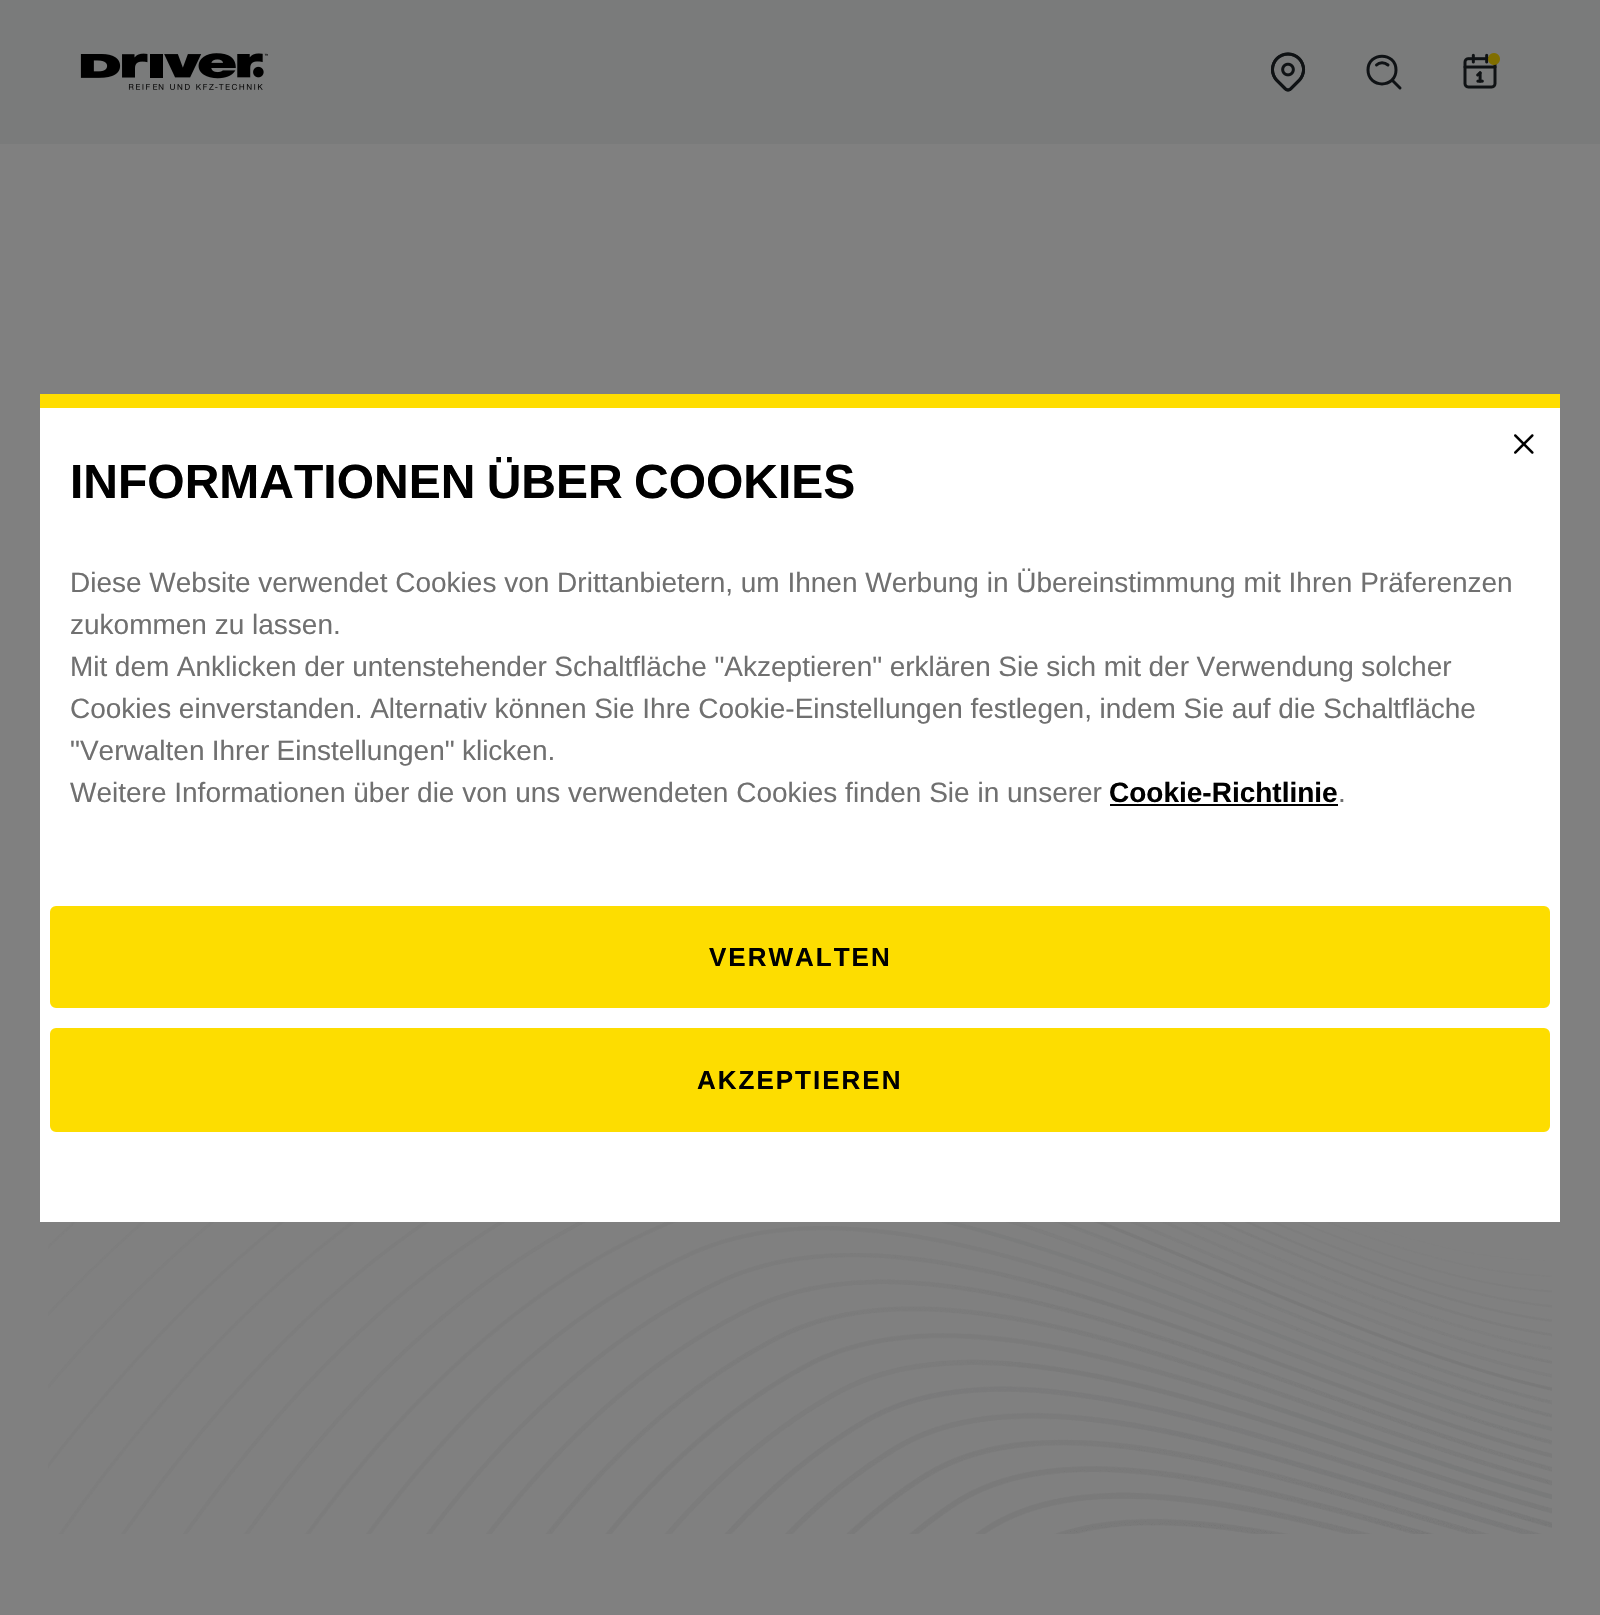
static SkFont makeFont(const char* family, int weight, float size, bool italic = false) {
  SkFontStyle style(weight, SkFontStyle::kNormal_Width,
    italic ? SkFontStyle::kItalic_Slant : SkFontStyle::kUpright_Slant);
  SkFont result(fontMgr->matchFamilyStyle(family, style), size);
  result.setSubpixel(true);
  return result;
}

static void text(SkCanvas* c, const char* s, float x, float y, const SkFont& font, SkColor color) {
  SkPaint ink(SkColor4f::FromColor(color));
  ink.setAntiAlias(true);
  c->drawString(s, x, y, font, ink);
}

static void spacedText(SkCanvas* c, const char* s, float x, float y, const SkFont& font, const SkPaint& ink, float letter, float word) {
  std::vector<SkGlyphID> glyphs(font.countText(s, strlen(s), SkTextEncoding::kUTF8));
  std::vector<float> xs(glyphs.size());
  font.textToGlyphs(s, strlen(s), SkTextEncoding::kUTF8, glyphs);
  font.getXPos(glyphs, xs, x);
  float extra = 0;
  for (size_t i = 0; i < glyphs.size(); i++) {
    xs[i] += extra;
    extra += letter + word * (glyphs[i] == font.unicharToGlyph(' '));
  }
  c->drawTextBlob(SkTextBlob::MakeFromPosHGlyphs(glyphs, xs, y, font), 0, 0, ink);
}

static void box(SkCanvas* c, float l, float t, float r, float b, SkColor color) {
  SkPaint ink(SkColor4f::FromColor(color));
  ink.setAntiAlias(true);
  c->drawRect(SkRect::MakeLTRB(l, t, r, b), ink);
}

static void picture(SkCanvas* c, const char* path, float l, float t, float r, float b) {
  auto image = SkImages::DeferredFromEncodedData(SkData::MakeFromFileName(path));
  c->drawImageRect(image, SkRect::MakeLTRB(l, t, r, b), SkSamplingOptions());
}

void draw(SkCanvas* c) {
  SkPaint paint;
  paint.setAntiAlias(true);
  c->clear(0xff808080);
  box(c, 0, 0, 1600, 144, 0xff7a7b7b);
  picture(c, "img_01.png", 80, 53, 268, 90);
  picture(c, "img_02.png", 1270, 52, 1306, 92);
  paint.setStyle(SkPaint::kStroke_Style);
  paint.setStrokeWidth(3);
  paint.setStrokeCap(SkPaint::kRound_Cap);
  paint.setStrokeJoin(SkPaint::kRound_Join);
  paint.setColor(0xff0f1215);
  c->drawPath(SkPathBuilder().moveTo(1376.5f, 65).cubicTo(1379.5f, 62, 1384.5f, 62, 1388, 65).moveTo(1400, 88).lineTo(1392, 80).moveTo(1396, 70).cubicTo(1396, 88.5f, 1368, 88.5f, 1368, 70).cubicTo(1368, 51.5f, 1396, 51.5f, 1396, 70).close().detach(), paint);
  picture(c, "img_03.png", 1463, 53, 1500, 89);
  picture(c, "img_04.png", 48, 1222, 1552, 1534);
  box(c, 40, 408, 1560, 1222, 0xffffffff);
  box(c, 40, 394, 1560, 408, 0xffffdd00);
  picture(c, "img_05.png", 1514, 434, 1534, 454);
  SkFont face1 = makeFont("Liberation Sans", 700, 48);
  paint.setStyle(SkPaint::kFill_Style);
  paint.setColor(0xff000000);
  spacedText(c, "INFORMATIONEN ÜBER COOKIES", 70, 498, face1, paint, 0, -2);
  SkFont face2 = makeFont("Liberation Sans", 400, 28);
  text(c, "Diese Website verwendet Cookies von Drittanbietern, um Ihnen Werbung in Übereinstimmung mit Ihren Präferenzen", 70, 592, face2, 0xff707070);
  text(c, "zukommen zu lassen.", 70, 634, face2, 0xff707070);
  paint.setColor(0xff707070);
  spacedText(c, "Mit dem Anklicken der untenstehender Schaltfläche \"Akzeptieren\" erklären Sie sich mit der Verwendung solcher", 70, 676, face2, paint, 0, -0.25f);
  spacedText(c, "Cookies einverstanden. Alternativ können Sie Ihre Cookie-Einstellungen festlegen, indem Sie auf die Schaltfläche", 70, 718, face2, paint, 0, -0.1f);
  spacedText(c, "\"Verwalten Ihrer Einstellungen\" klicken.", 70, 760, face2, paint, 0, -0.5f);
  text(c, "Weitere Informationen über die von uns verwendeten Cookies finden Sie in unserer", 70, 802, face2, 0xff707070);
  SkFont face3 = makeFont("Liberation Sans", 700, 28);
  text(c, "Cookie-Richtlinie", 1109, 802, face3, 0xff000000);
  box(c, 1110, 804, 1338, 806, 0xff000000);
  text(c, ".", 1338, 802, face2, 0xff707070);
  paint.setColor(0xfffddd00);
  c->drawRoundRect(SkRect::MakeLTRB(51, 907, 1549, 1007), 5, 5, paint);
  paint.setStyle(SkPaint::kStroke_Style);
  paint.setStrokeWidth(2);
  paint.setStrokeCap(SkPaint::kButt_Cap);
  paint.setStrokeJoin(SkPaint::kMiter_Join);
  c->drawRoundRect(SkRect::MakeLTRB(51, 907, 1549, 1007), 5, 5, paint);
  SkFont face4 = makeFont("Liberation Sans", 700, 26);
  paint.setStyle(SkPaint::kFill_Style);
  paint.setColor(0xff000000);
  spacedText(c, "VERWALTEN", 709, 966, face4, paint, 2, 0);
  paint.setColor(0xfffddd00);
  c->drawRoundRect(SkRect::MakeLTRB(51, 1029, 1549, 1131), 5, 5, paint);
  paint.setStyle(SkPaint::kStroke_Style);
  c->drawRoundRect(SkRect::MakeLTRB(51, 1029, 1549, 1131), 5, 5, paint);
  paint.setStyle(SkPaint::kFill_Style);
  paint.setColor(0xff000000);
  spacedText(c, "AKZEPTIEREN", 697, 1089, face4, paint, 2, 0);
}
